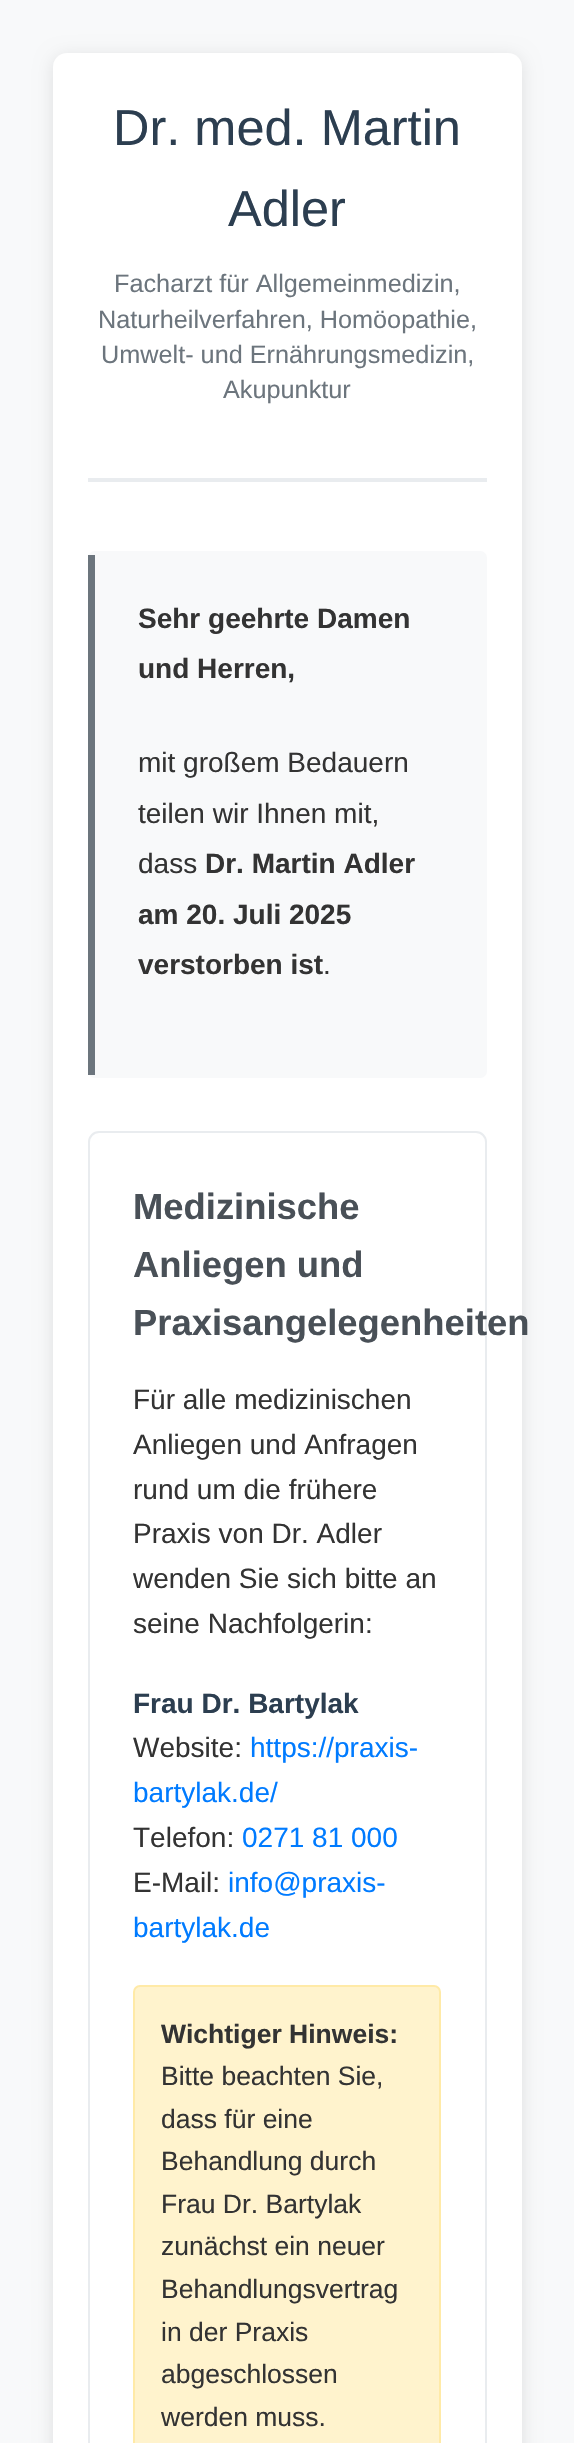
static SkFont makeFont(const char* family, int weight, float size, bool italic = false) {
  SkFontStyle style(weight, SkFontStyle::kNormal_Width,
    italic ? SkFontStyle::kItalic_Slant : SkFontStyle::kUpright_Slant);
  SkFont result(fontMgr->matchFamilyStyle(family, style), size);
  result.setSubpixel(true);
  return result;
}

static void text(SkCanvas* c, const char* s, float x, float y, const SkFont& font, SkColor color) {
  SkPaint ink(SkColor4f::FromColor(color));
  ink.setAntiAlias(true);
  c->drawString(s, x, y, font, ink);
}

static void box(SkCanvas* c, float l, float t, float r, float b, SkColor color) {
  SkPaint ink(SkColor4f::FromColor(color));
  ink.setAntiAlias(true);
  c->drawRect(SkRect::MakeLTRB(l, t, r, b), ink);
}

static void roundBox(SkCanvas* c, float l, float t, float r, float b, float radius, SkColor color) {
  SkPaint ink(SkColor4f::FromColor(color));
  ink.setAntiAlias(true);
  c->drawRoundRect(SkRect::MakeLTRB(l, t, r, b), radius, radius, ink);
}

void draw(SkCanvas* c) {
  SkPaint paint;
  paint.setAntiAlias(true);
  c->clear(0xfff8f9fa);
  paint.setColor(0x1a000000);
  paint.setMaskFilter(SkMaskFilter::MakeBlur(kNormal_SkBlurStyle, 9));
  c->drawRoundRect(SkRect::MakeLTRB(53, 56, 522, 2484), 14, 14, paint);
  paint.setMaskFilter(nullptr);
  roundBox(c, 53, 53, 522, 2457, 14, 0xffffffff);
  SkFont face1 = makeFont("Liberation Sans", 400, 50.5f);
  text(c, "Dr. med. Martin", 113, 145, face1, 0xff2c3e50);
  text(c, "Adler", 228, 226, face1, 0xff2c3e50);
  box(c, 88, 478, 487, 482, 0xffe9ecef);
  SkFont face2 = makeFont("Liberation Sans", 400, 25.25f);
  text(c, "Facharzt für Allgemeinmedizin,", 114, 292, face2, 0xff6c757d);
  text(c, "Naturheilverfahren, Homöopathie,", 98, 328, face2, 0xff6c757d);
  text(c, "Umwelt- und Ernährungsmedizin,", 101, 363, face2, 0xff6c757d);
  text(c, "Akupunktur", 223, 398, face2, 0xff6c757d);
  roundBox(c, 88, 551, 487, 1078, 7, 0xfff8f9fa);
  box(c, 88, 555, 95, 1075, 0xff6c757d);
  SkFont face3 = makeFont("Liberation Sans", 700, 28);
  text(c, "Sehr geehrte Damen", 138, 628, face3, 0xff333333);
  text(c, "und Herren,", 138, 678, face3, 0xff333333);
  SkFont face4 = makeFont("Liberation Sans", 400, 28);
  text(c, "mit großem Bedauern", 138, 772, face4, 0xff333333);
  text(c, "teilen wir Ihnen mit,", 138, 823, face4, 0xff333333);
  text(c, "dass", 138, 873, face4, 0xff333333);
  text(c, "Dr. Martin Adler", 205, 873, face3, 0xff333333);
  text(c, "am 20. Juli 2025", 138, 924, face3, 0xff333333);
  text(c, "verstorben ist", 138, 974, face3, 0xff333333);
  text(c, ".", 323, 974, face4, 0xff333333);
  paint.setStyle(SkPaint::kStroke_Style);
  paint.setStrokeWidth(2);
  paint.setColor(0xffe9ecef);
  c->drawRoundRect(SkRect::MakeLTRB(89, 1132, 486, 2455), 10, 10, paint);
  SkFont face5 = makeFont("Liberation Sans", 700, 36.4f);
  text(c, "Medizinische", 133, 1219, face5, 0xff495057);
  text(c, "Anliegen und", 133, 1277, face5, 0xff495057);
  text(c, "Praxisangelegenheiten", 133, 1335, face5, 0xff495057);
  text(c, "Für alle medizinischen", 133, 1409, face4, 0xff333333);
  text(c, "Anliegen und Anfragen", 133, 1454, face4, 0xff333333);
  text(c, "rund um die frühere", 133, 1499, face4, 0xff333333);
  text(c, "Praxis von Dr. Adler", 133, 1543, face4, 0xff333333);
  text(c, "wenden Sie sich bitte an", 133, 1588, face4, 0xff333333);
  text(c, "seine Nachfolgerin:", 133, 1633, face4, 0xff333333);
  text(c, "Frau Dr. Bartylak", 133, 1713, face3, 0xff2c3e50);
  text(c, "Website:", 133, 1757, face4, 0xff333333);
  text(c, "https://praxis-", 250, 1757, face4, 0xff007bff);
  text(c, "bartylak.de/", 133, 1802, face4, 0xff007bff);
  text(c, "Telefon:", 133, 1847, face4, 0xff333333);
  text(c, "0271 81 000", 242, 1847, face4, 0xff007bff);
  text(c, "E-Mail:", 133, 1892, face4, 0xff333333);
  text(c, "info@praxis-", 228, 1892, face4, 0xff007bff);
  text(c, "bartylak.de", 133, 1937, face4, 0xff007bff);
  paint.setStyle(SkPaint::kFill_Style);
  paint.setColor(0xfffff3cd);
  c->drawRoundRect(SkRect::MakeLTRB(134, 1986, 440, 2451), 6, 6, paint);
  paint.setStyle(SkPaint::kStroke_Style);
  paint.setColor(0xffffeaa7);
  c->drawRoundRect(SkRect::MakeLTRB(134, 1986, 440, 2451), 6, 6, paint);
  SkFont face6 = makeFont("Liberation Sans", 700, 26.5f);
  text(c, "Wichtiger Hinweis:", 161, 2043, face6, 0xff333333);
  SkFont face7 = makeFont("Liberation Sans", 400, 26.5f);
  text(c, "Bitte beachten Sie,", 161, 2085, face7, 0xff333333);
  text(c, "dass für eine", 161, 2128, face7, 0xff333333);
  text(c, "Behandlung durch", 161, 2170, face7, 0xff333333);
  text(c, "Frau Dr. Bartylak", 161, 2213, face7, 0xff333333);
  text(c, "zunächst ein neuer", 161, 2255, face7, 0xff333333);
  text(c, "Behandlungsvertrag", 161, 2298, face7, 0xff333333);
  text(c, "in der Praxis", 161, 2341, face7, 0xff333333);
  text(c, "abgeschlossen", 161, 2383, face7, 0xff333333);
  text(c, "werden muss.", 161, 2426, face7, 0xff333333);
}
